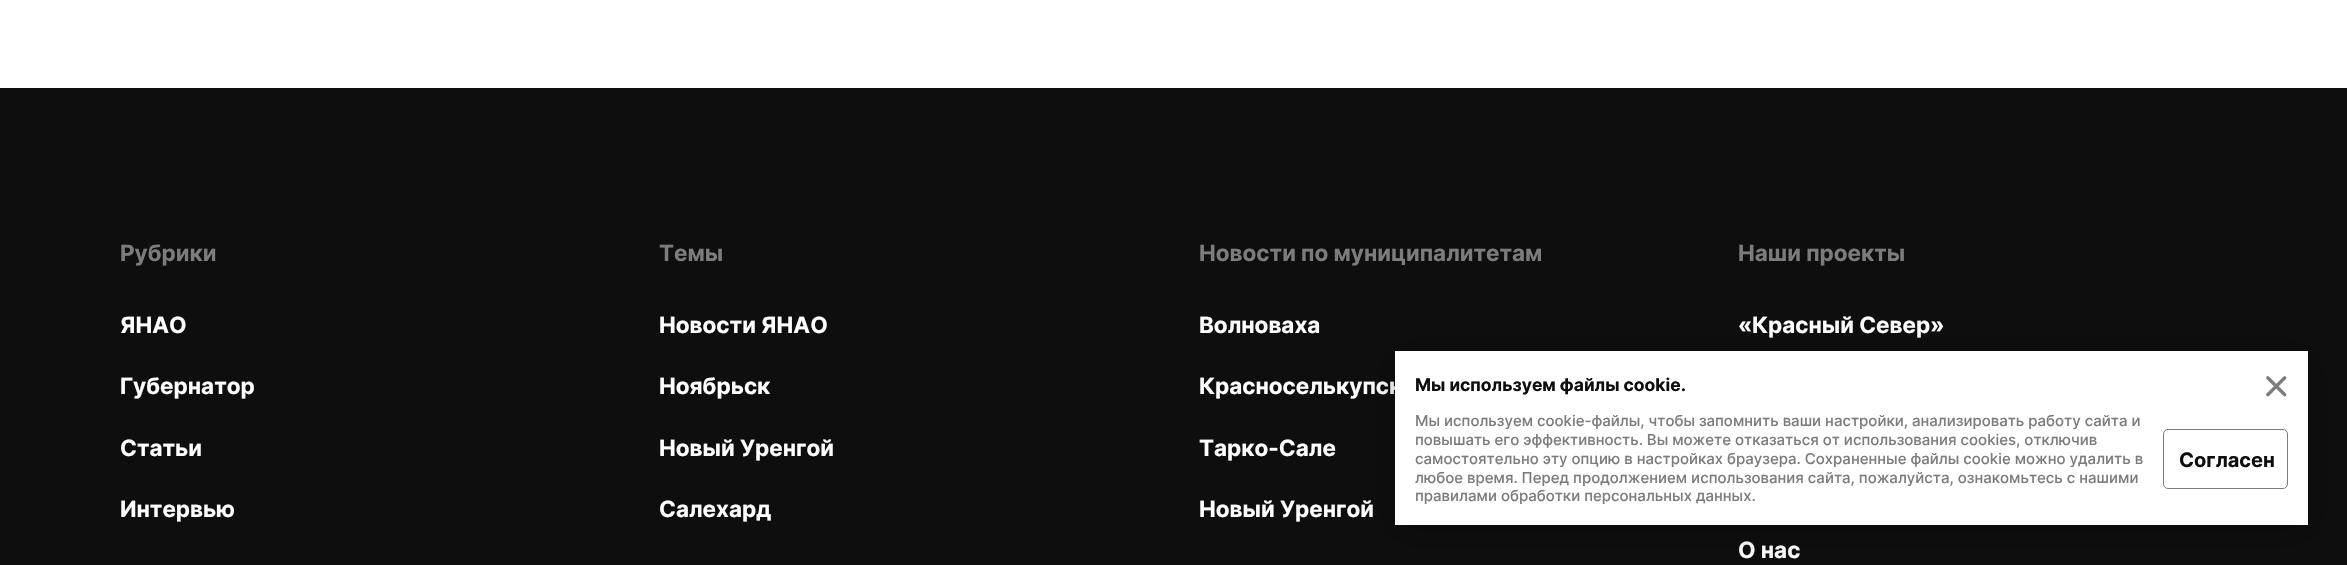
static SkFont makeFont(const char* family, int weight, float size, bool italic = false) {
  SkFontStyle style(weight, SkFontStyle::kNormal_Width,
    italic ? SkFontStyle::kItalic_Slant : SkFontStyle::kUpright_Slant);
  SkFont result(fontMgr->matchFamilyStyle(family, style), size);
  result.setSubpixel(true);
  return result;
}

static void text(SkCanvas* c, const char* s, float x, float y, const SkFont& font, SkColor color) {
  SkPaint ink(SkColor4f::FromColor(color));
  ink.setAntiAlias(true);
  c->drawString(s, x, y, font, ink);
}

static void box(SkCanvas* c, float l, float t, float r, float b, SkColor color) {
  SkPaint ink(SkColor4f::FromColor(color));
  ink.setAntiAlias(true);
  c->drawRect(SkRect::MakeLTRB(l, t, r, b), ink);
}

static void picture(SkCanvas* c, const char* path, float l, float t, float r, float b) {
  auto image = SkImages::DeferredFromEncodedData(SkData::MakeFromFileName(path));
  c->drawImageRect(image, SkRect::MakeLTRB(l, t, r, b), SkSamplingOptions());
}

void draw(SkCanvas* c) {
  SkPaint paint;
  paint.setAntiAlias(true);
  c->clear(0xffffffff);
  box(c, 0, 88, 2347, 565, 0xff0e0e0e);
  SkFont face1 = makeFont("Inter", 700, 22.5f);
  text(c, "Рубрики", 120, 261, face1, 0xff7c7c7c);
  text(c, "ЯНАО", 120, 333, face1, 0xffffffff);
  text(c, "Губернатор", 120, 394, face1, 0xffffffff);
  text(c, "Статьи", 120, 456, face1, 0xffffffff);
  text(c, "Интервью", 120, 517, face1, 0xffffffff);
  text(c, "Темы", 659, 261, face1, 0xff7c7c7c);
  text(c, "Новости ЯНАО", 659, 333, face1, 0xffffffff);
  text(c, "Ноябрьск", 659, 394, face1, 0xffffffff);
  text(c, "Новый Уренгой", 659, 456, face1, 0xffffffff);
  text(c, "Салехард", 659, 517, face1, 0xffffffff);
  text(c, "Новости по муниципалитетам", 1199, 261, face1, 0xff7c7c7c);
  text(c, "Волноваха", 1199, 333, face1, 0xffffffff);
  text(c, "Красноселькупск", 1199, 394, face1, 0xffffffff);
  text(c, "Тарко-Сале", 1199, 456, face1, 0xffffffff);
  text(c, "Новый Уренгой", 1199, 517, face1, 0xffffffff);
  text(c, "Наши проекты", 1738, 261, face1, 0xff7c7c7c);
  text(c, "«Красный Север»", 1738, 333, face1, 0xffffffff);
  text(c, "О нас", 1738, 558, face1, 0xffffffff);
  paint.setColor(0x40000000);
  paint.setMaskFilter(SkMaskFilter::MakeBlur(kNormal_SkBlurStyle, 17));
  c->drawRect(SkRect::MakeLTRB(1395, 356, 2308, 530), paint);
  paint.setMaskFilter(nullptr);
  box(c, 1395, 351, 2308, 525, 0xffffffff);
  SkFont face2 = makeFont("Inter", 700, 17.5f);
  text(c, "Мы используем файлы cookie.", 1415, 391, face2, 0xff0e0e0e);
  picture(c, "img_01.png", 2266, 376, 2287, 397);
  SkFont face3 = makeFont("Inter", 500, 15);
  text(c, "Мы используем cookie-файлы, чтобы запомнить ваши настройки, анализировать работу сайта и", 1415, 426, face3, 0xff7c7c7c);
  text(c, "повышать его эффективность. Вы можете отказаться от использования cookies, отключив", 1415, 445, face3, 0xff7c7c7c);
  text(c, "самостоятельно эту опцию в настройках браузера. Сохраненные файлы cookie можно удалить в", 1415, 464, face3, 0xff7c7c7c);
  text(c, "любое время. Перед продолжением использования сайта, пожалуйста, ознакомьтесь с нашими", 1415, 483, face3, 0xff7c7c7c);
  text(c, "правилами обработки персональных данных.", 1415, 501, face3, 0xff7c7c7c);
  paint.setStyle(SkPaint::kStroke_Style);
  paint.setStrokeWidth(1);
  paint.setColor(0xff7c7c7c);
  c->drawRoundRect(SkRect::MakeLTRB(2163.5f, 429.5f, 2287.5f, 488.5f), 4.5f, 4.5f, paint);
  SkFont face4 = makeFont("Inter", 700, 20);
  text(c, "Согласен", 2179, 467, face4, 0xff0e0e0e);
}
